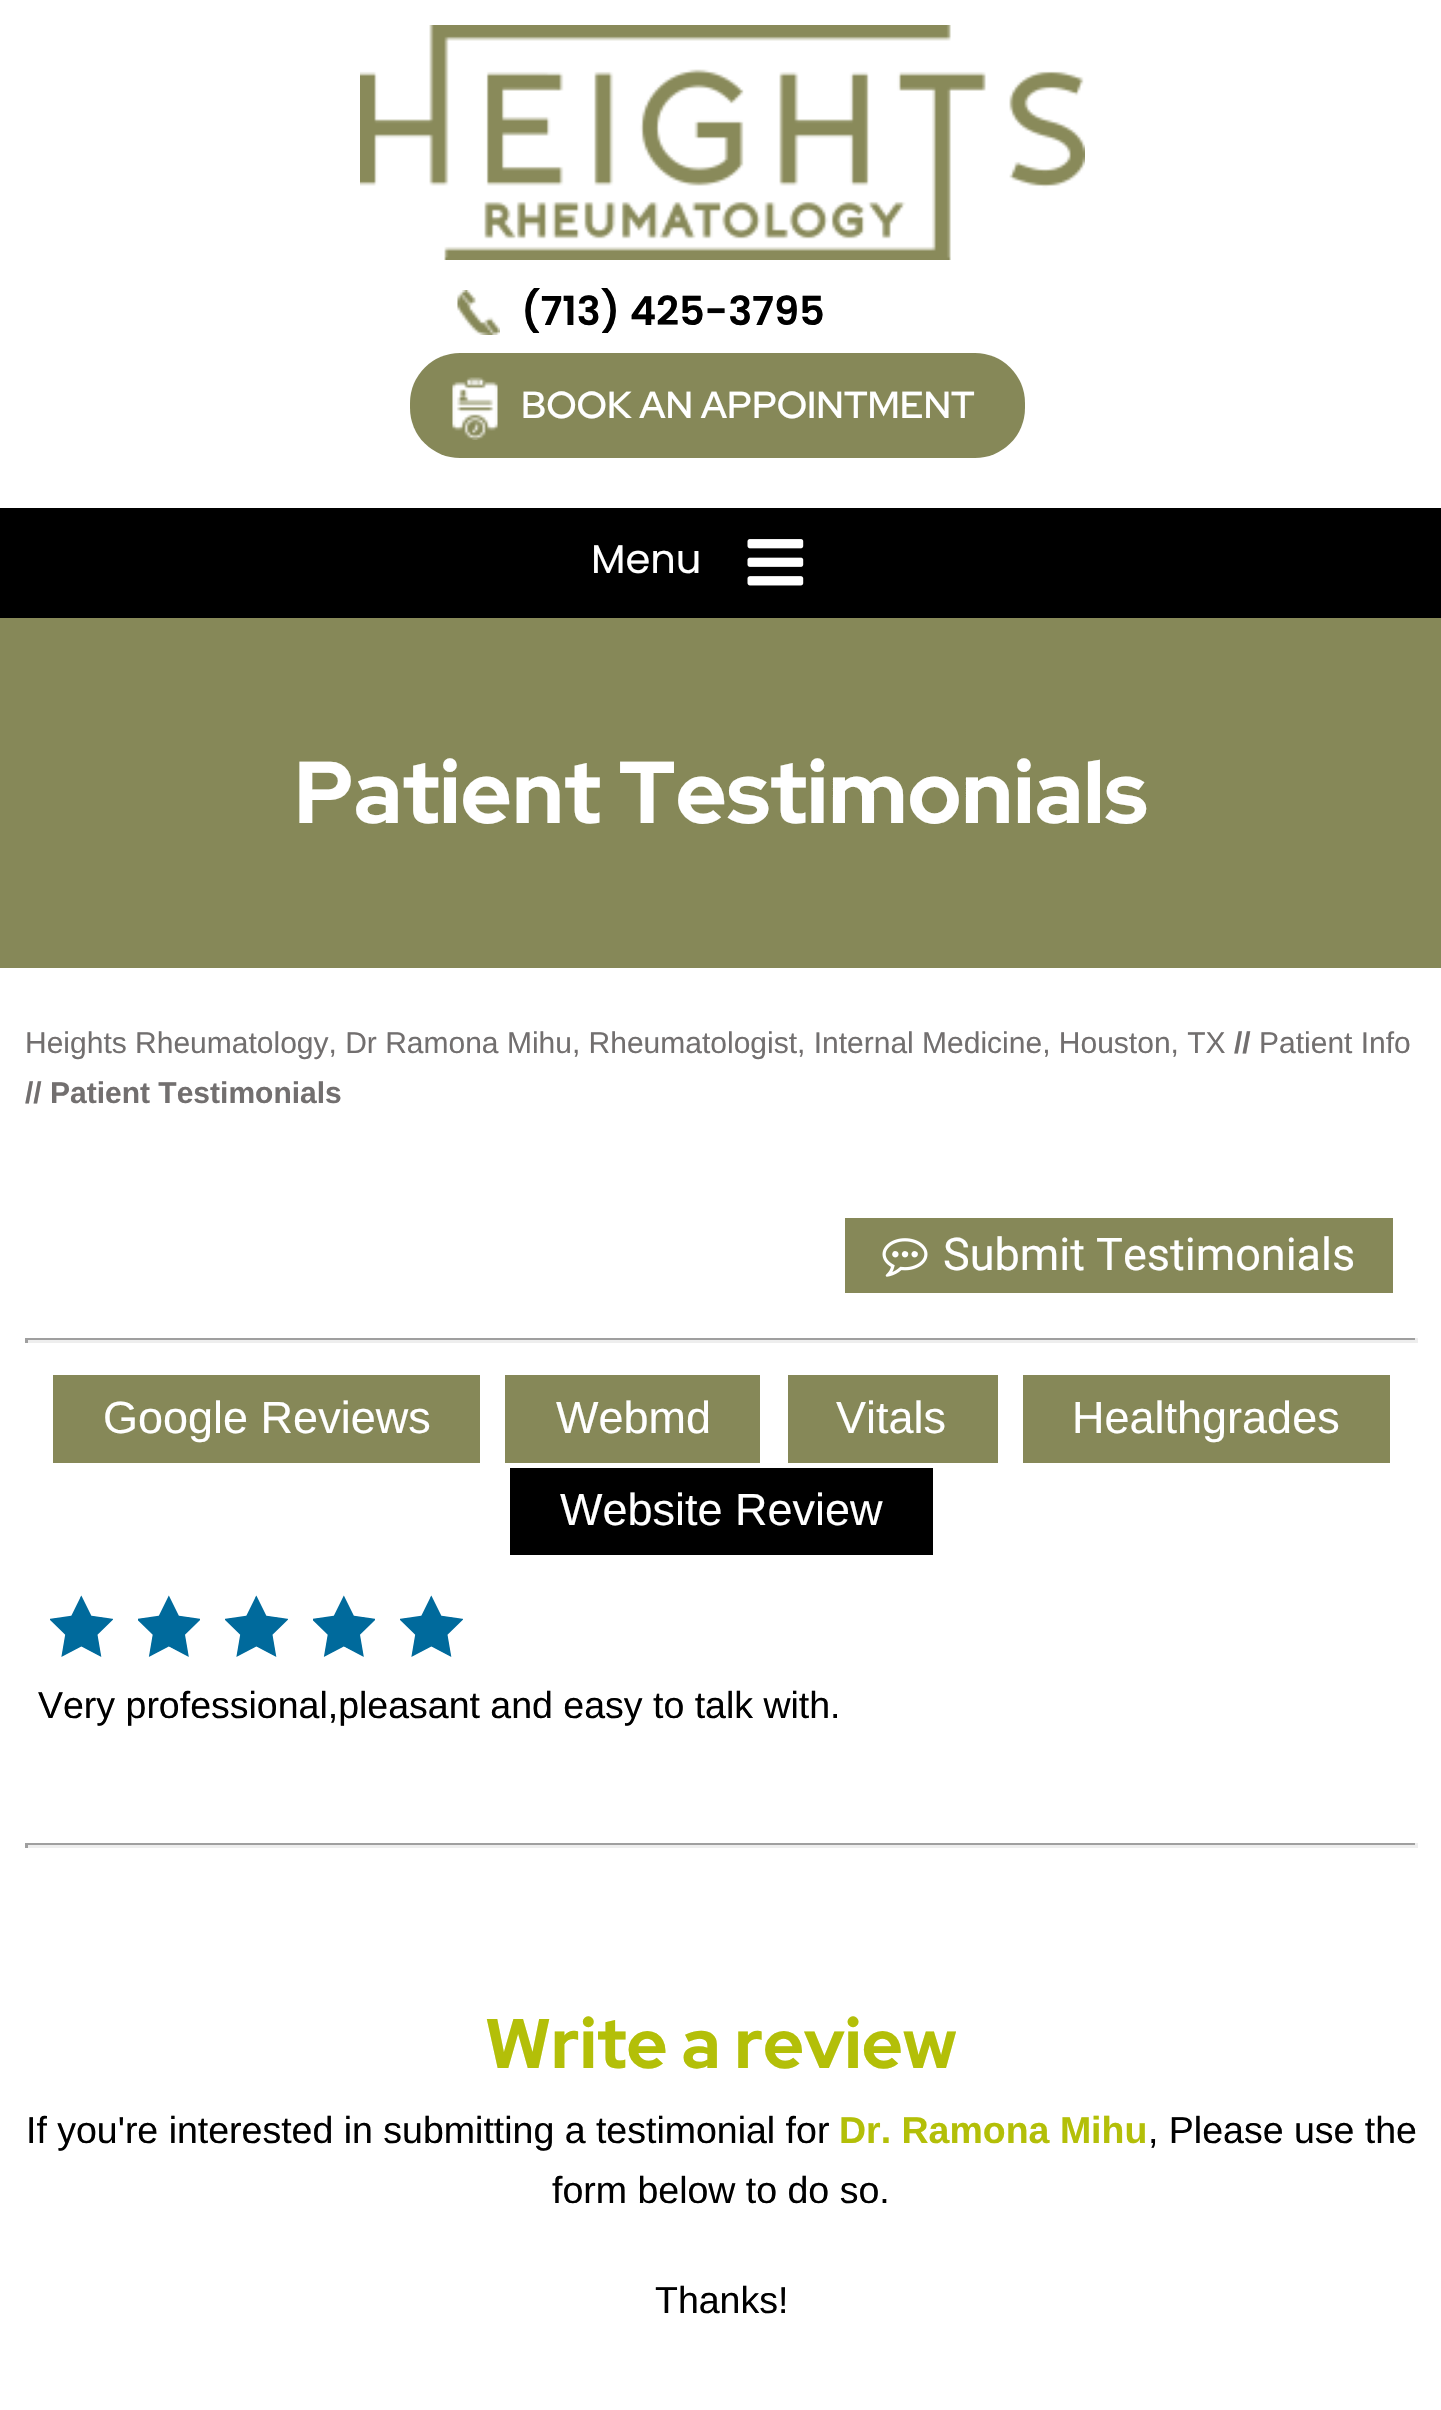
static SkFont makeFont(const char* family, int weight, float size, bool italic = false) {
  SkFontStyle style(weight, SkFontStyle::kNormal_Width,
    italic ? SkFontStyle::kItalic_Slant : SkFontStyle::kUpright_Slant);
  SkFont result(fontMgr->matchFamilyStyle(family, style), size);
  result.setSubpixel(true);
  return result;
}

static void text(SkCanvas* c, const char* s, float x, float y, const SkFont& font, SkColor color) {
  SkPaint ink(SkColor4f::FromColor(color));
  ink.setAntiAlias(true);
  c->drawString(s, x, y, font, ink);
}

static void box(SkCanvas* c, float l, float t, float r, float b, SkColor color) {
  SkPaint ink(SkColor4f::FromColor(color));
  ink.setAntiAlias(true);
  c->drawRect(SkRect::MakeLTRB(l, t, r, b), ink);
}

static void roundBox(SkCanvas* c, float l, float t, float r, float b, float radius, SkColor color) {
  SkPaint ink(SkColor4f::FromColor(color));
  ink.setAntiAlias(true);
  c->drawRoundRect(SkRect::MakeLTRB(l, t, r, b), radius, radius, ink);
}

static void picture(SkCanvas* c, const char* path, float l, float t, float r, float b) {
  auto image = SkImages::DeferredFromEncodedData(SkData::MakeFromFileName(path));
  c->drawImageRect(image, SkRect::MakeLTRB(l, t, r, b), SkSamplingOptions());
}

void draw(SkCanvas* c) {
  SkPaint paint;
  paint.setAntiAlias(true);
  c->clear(0xffffffff);
  picture(c, "img_01.png", 360, 25, 1085, 260);
  picture(c, "img_02.png", 457, 290, 500, 335);
  SkFont face1 = makeFont("Poppins", 600, 40);
  text(c, "(713) 425-3795", 521, 325, face1, 0xff000000);
  roundBox(c, 410, 353, 1025, 458, 50, 0xff868858);
  picture(c, "img_03.png", 452, 377, 498, 440);
  SkFont face2 = makeFont("Red Hat Display", 600, 37.5f);
  text(c, "BOOK AN APPOINTMENT", 521, 418, face2, 0xffffffff);
  box(c, 0, 508, 1441, 618, 0xff000000);
  SkFont face3 = makeFont("Poppins", 400, 40);
  text(c, "Menu", 591, 573, face3, 0xffffffff);
  picture(c, "img_04.png", 747, 539, 804, 586);
  box(c, 0, 618, 1441, 968, 0xff868858);
  SkFont face4 = makeFont("Red Hat Display", 800, 87.5f);
  text(c, "Patient Testimonials", 294, 823, face4, 0xffffffff);
  SkFont face5 = makeFont("Liberation Sans", 400, 30);
  text(c, "Heights Rheumatology, Dr Ramona Mihu, Rheumatologist, Internal Medicine, Houston, TX", 25, 1053, face5, 0xff726f6f);
  SkFont face6 = makeFont("Liberation Sans", 700, 30);
  text(c, "//", 1234, 1053, face6, 0xff726f6f);
  text(c, "Patient Info", 1259, 1053, face5, 0xff726f6f);
  text(c, "// Patient Testimonials", 25, 1103, face6, 0xff726f6f);
  box(c, 845, 1218, 1393, 1293, 0xff868858);
  picture(c, "img_05.png", 882, 1238, 928, 1277);
  SkFont face7 = makeFont("Roboto", 400, 45);
  text(c, "Submit Testimonials", 943, 1270, face7, 0xffffffff);
  box(c, 25, 1338, 1418, 1340, 0xff9f9f9f);
  box(c, 1415, 1338, 1418, 1343, 0xffeeeeee);
  box(c, 25, 1340, 1418, 1343, 0xffeeeeee);
  box(c, 25, 1338, 28, 1343, 0xff9f9f9f);
  box(c, 53, 1375, 480, 1463, 0xff868858);
  SkFont face8 = makeFont("Liberation Sans", 400, 45);
  text(c, "Google Reviews", 103, 1433, face8, 0xffffffff);
  box(c, 505, 1375, 760, 1463, 0xff868858);
  text(c, "Webmd", 556, 1433, face8, 0xffffffff);
  box(c, 788, 1375, 998, 1463, 0xff868858);
  text(c, "Vitals", 836, 1433, face8, 0xffffffff);
  box(c, 1023, 1375, 1390, 1463, 0xff868858);
  text(c, "Healthgrades", 1072, 1433, face8, 0xffffffff);
  box(c, 510, 1468, 933, 1555, 0xff000000);
  text(c, "Website Review", 560, 1525, face8, 0xffffffff);
  picture(c, "img_06.png", 50, 1595, 113, 1657);
  picture(c, "img_07.png", 138, 1595, 200, 1657);
  picture(c, "img_06.png", 225, 1595, 288, 1657);
  picture(c, "img_07.png", 313, 1595, 375, 1657);
  picture(c, "img_06.png", 400, 1595, 463, 1657);
  SkFont face9 = makeFont("Liberation Sans", 400, 37.5f);
  text(c, "Very professional,pleasant and easy to talk with.", 38, 1718, face9, 0xff000000);
  box(c, 25, 1843, 1418, 1845, 0xff9f9f9f);
  box(c, 1415, 1843, 1418, 1848, 0xffeeeeee);
  box(c, 25, 1845, 1418, 1848, 0xffeeeeee);
  box(c, 25, 1843, 28, 1848, 0xff9f9f9f);
  SkFont face10 = makeFont("Red Hat Display", 800, 70);
  text(c, "Write a review", 485, 2068, face10, 0xffb3bf08);
  text(c, "If you're interested in submitting a testimonial for", 26, 2143, face9, 0xff000000);
  SkFont face11 = makeFont("Liberation Sans", 700, 37.5f);
  text(c, "Dr. Ramona Mihu", 839, 2143, face11, 0xffb3bf08);
  text(c, ", Please use the", 1148, 2143, face9, 0xff000000);
  text(c, "form below to do so.", 552, 2203, face9, 0xff000000);
  text(c, "Thanks!", 655, 2313, face9, 0xff000000);
}
